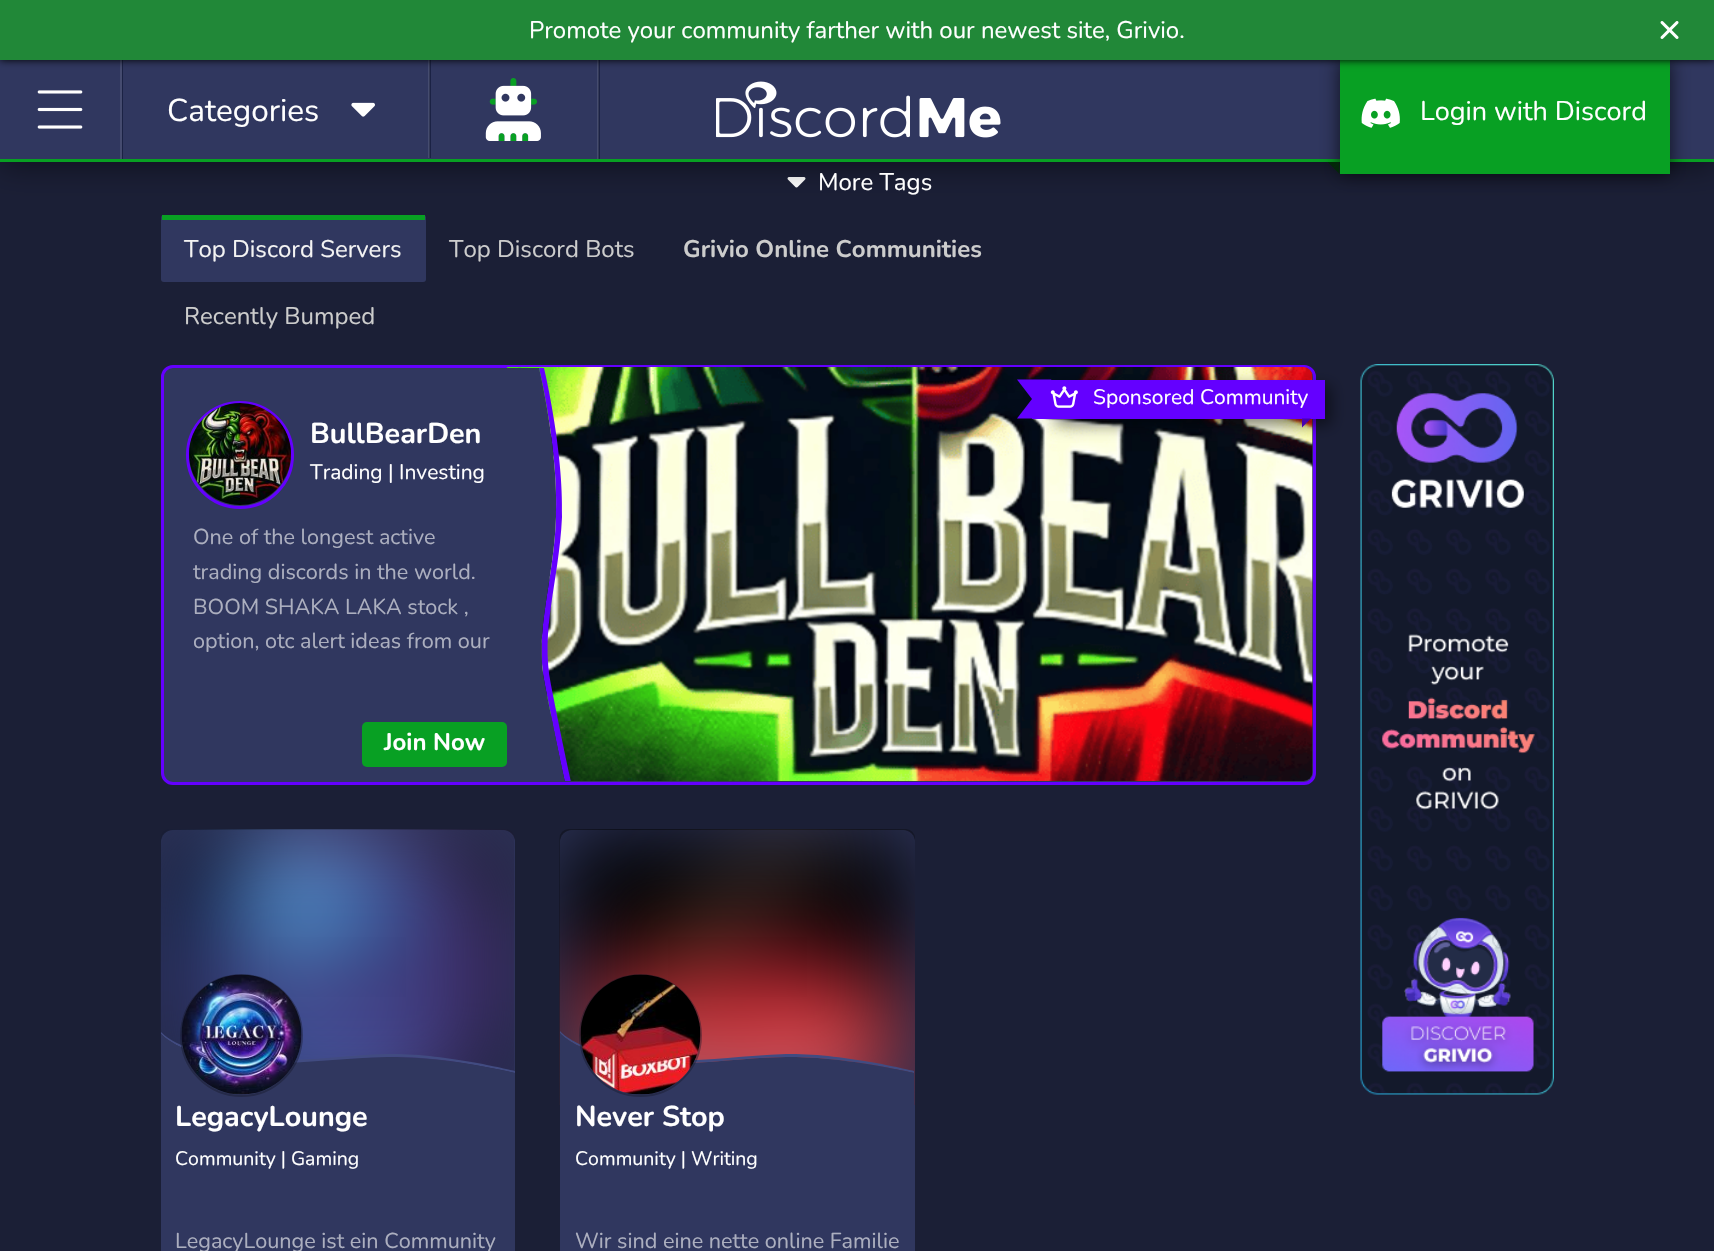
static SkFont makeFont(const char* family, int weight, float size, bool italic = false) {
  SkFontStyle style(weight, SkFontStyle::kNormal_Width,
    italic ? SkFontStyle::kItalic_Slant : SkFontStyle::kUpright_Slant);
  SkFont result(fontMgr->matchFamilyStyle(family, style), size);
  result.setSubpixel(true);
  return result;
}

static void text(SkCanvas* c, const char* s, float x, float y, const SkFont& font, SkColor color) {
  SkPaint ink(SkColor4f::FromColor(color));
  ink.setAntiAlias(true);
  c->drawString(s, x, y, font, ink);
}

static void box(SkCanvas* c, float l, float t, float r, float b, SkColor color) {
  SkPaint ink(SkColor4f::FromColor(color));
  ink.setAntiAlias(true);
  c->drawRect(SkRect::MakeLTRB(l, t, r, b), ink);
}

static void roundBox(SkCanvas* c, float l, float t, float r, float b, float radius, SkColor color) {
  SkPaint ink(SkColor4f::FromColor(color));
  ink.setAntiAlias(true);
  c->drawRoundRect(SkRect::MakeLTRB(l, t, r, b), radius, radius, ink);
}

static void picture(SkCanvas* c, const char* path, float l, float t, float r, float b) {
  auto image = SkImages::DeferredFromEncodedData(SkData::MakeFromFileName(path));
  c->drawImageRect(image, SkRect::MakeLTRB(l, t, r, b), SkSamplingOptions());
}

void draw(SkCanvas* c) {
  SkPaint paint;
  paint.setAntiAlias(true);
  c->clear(0xff1b1f36);
  picture(c, "img_07.png", 787, 177, 806, 188);
  paint.setColor(0x80000000);
  paint.setMaskFilter(SkMaskFilter::MakeBlur(kNormal_SkBlurStyle, 15));
  c->drawRect(SkRect::MakeLTRB(0, 3, 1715, 165), paint);
  paint.setMaskFilter(nullptr);
  box(c, 0, 60, 1714, 159, 0xff30375f);
  box(c, 0, 159, 1714, 162, 0xff08a023);
  box(c, 122, 60, 123, 159, 0xff1b2244);
  box(c, 120, 60, 122, 159, 0xff454b6f);
  paint.setColor(0xff1b2244);
  c->drawPath(SkPathBuilder().moveTo(123, 158).lineTo(431, 158).lineTo(431, 60).lineTo(429, 60).lineTo(429, 158).close().detach(), paint);
  box(c, 428, 60, 430, 158, 0x1affffff);
  box(c, 598, 60, 600, 159, 0xff1b2244);
  box(c, 597, 60, 599, 159, 0x1affffff);
  paint.setColor(0xb3000000);
  paint.setMaskFilter(SkMaskFilter::MakeBlur(kNormal_SkBlurStyle, 9));
  c->drawRect(SkRect::MakeLTRB(1340, 60, 1670, 174), paint);
  paint.setMaskFilter(nullptr);
  box(c, 1340, 60, 1670, 174, 0xff08a023);
  paint.setColor(0xff000000);
  paint.setMaskFilter(SkMaskFilter::MakeBlur(kNormal_SkBlurStyle, 4));
  c->drawRect(SkRect::MakeLTRB(0, 0, 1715, 60), paint);
  paint.setMaskFilter(nullptr);
  box(c, 0, 0, 1714, 60, 0xff218838);
  SkFont face1 = makeFont("Nunito", 400, 24);
  text(c, "Promote your community farther with our newest site, Grivio.", 529, 38, face1, 0xffffffff);
  picture(c, "img_01.png", 1660, 21, 1679, 39);
  picture(c, "img_02.png", 37, 90, 83, 129);
  SkFont face2 = makeFont("Nunito", 400, 31.5f);
  text(c, "Categories", 167, 121, face2, 0xffffffff);
  picture(c, "img_03.png", 351, 102, 375, 117);
  picture(c, "img_04.png", 485, 78, 541, 141);
  picture(c, "img_05.png", 716, 81, 1001, 138);
  picture(c, "img_06.png", 1361, 98, 1400, 128);
  SkFont face3 = makeFont("Nunito", 400, 27);
  text(c, "Login with Discord", 1420, 120, face3, 0xffffffff);
  paint.setColor(0xff022708);
  c->drawPath(SkPathBuilder().moveTo(1327.5f, 162).lineTo(1339.5f, 162).lineTo(1333.5f, 168).close().detach(), paint);
  c->drawPath(SkPathBuilder().moveTo(1339.5f, 162).lineTo(1339.5f, 174).lineTo(1333.5f, 168).close().detach(), paint);
  text(c, "More Tags", 818, 190, face1, 0xffffffff);
  roundBox(c, 161, 215, 426, 282, 3, 0xff30375f);
  box(c, 162, 215, 425, 220, 0xff08a023);
  text(c, "Top Discord Servers", 184, 257, face1, 0xfff3f3f3);
  text(c, "Top Discord Bots", 449, 257, face1, 0xffcccccc);
  SkFont face4 = makeFont("Nunito", 700, 24);
  text(c, "Grivio Online Communities", 683, 257, face4, 0xffcccccc);
  text(c, "Recently Bumped", 184, 324, face1, 0xffcccccc);
  paint.setColor(0xff30375f);
  c->drawRoundRect(SkRect::MakeLTRB(162.5f, 366.5f, 1314.5f, 783.5f), 10.5f, 10.5f, paint);
  paint.setStyle(SkPaint::kStroke_Style);
  paint.setStrokeWidth(3);
  paint.setColor(0xff6400ff);
  c->drawRoundRect(SkRect::MakeLTRB(162.5f, 366.5f, 1314.5f, 783.5f), 10.5f, 10.5f, paint);
  picture(c, "img_08.png", 507, 367, 1313, 781);
  paint.setStyle(SkPaint::kFill_Style);
  c->drawPath(SkPathBuilder().moveTo(545, 685).cubicTo(534, 629, 554, 582, 556, 517).cubicTo(559, 451, 539, 368, 539, 368).lineTo(544, 368).cubicTo(544, 368, 564, 451, 562, 517).cubicTo(559, 582, 540, 629, 551, 685).cubicTo(566, 761, 571, 781, 571, 781).lineTo(565, 781).cubicTo(565, 781, 560, 761, 545, 685).close().detach(), paint);
  paint.setColor(0xff30375f);
  c->drawPath(SkPathBuilder().moveTo(539, 368).cubicTo(539, 368, 559, 451, 556, 517).cubicTo(554, 582, 534, 629, 545, 685).cubicTo(560, 761, 565, 781, 565, 781).lineTo(507, 781).lineTo(507, 368).close().detach(), paint);
  paint.setColor(0x80000000);
  paint.setMaskFilter(SkMaskFilter::MakeBlur(kNormal_SkBlurStyle, 7.5f));
  c->drawRect(SkRect::MakeLTRB(1056, 386, 1331, 425), paint);
  paint.setMaskFilter(nullptr);
  box(c, 1052, 380, 1325, 419, 0xff6400ff);
  paint.setColor(0xff6400ff);
  c->drawPath(SkPathBuilder().moveTo(1017, 379.5f).lineTo(1051.5f, 379.5f).lineTo(1032, 399).close().detach(), paint);
  box(c, 1032, 380, 1052, 419, 0xff6400ff);
  c->drawPath(SkPathBuilder().moveTo(1051.5f, 418.5f).lineTo(1017, 418.5f).lineTo(1032, 399).close().detach(), paint);
  picture(c, "img_09.png", 1050, 386, 1078, 408);
  SkFont face5 = makeFont("Nunito", 400, 21);
  text(c, "Sponsored Community", 1093, 404, face5, 0xffffffff);
  paint.setColor(0xff4600b3);
  c->drawPath(SkPathBuilder().moveTo(1302, 418.5f).lineTo(1311, 418.5f).lineTo(1306.5f, 423).close().detach(), paint);
  c->drawPath(SkPathBuilder().moveTo(1302, 427.5f).lineTo(1302, 418.5f).lineTo(1306.5f, 423).close().detach(), paint);
  paint.setStyle(SkPaint::kStroke_Style);
  paint.setColor(0xff6400ff);
  c->drawCircle(240, 455, 52.5f, paint);
  picture(c, "img_10.png", 189, 403, 291, 505);
  SkFont face6 = makeFont("Nunito", 700, 28.75f);
  text(c, "BullBearDen", 310, 443, face6, 0xffffffff);
  text(c, "Trading | Investing", 310, 479, face5, 0xffffffff);
  SkFont face7 = makeFont("Nunito", 400, 21.6f);
  text(c, "One of the longest active", 193, 544, face7, 0xffacafbf);
  text(c, "trading discords in the world.", 193, 579, face7, 0xffacafbf);
  text(c, "BOOM SHAKA LAKA stock ,", 193, 614, face7, 0xffacafbf);
  text(c, "option, otc alert ideas from our", 193, 648, face7, 0xffacafbf);
  roundBox(c, 362, 722, 507, 767, 5, 0xff08a023);
  text(c, "Join Now", 384, 750, face4, 0xffffffff);
  roundBox(c, 161, 830, 515, 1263, 12, 0xff30375f);
  picture(c, "img_11.png", 160, 829, 515, 1105);
  paint.setStyle(SkPaint::kFill_Style);
  paint.setColor(0xff414b81);
  c->drawPath(SkPathBuilder().moveTo(387, 1054).cubicTo(444, 1053, 515, 1071, 515, 1071).lineTo(515, 1073).cubicTo(480, 1065, 444, 1059, 409, 1057).cubicTo(336, 1054, 266, 1076, 194, 1052).cubicTo(182, 1048, 170, 1043, 161, 1034).lineTo(161, 1032).cubicTo(170, 1041, 182, 1046, 194, 1049).cubicTo(257, 1070, 323, 1056, 387, 1054).close().detach(), paint);
  paint.setColor(0xff30375f);
  c->drawPath(SkPathBuilder().moveTo(387, 1057).cubicTo(321, 1058, 258, 1073, 194, 1052).cubicTo(182, 1048, 170, 1043, 161, 1034).lineTo(161, 1106).lineTo(515, 1106).lineTo(515, 1073).cubicTo(515, 1073, 444, 1056, 387, 1057).close().detach(), paint);
  paint.setStyle(SkPaint::kStroke_Style);
  paint.setStrokeWidth(2);
  paint.setColor(0x66141628);
  c->drawCircle(241.5f, 1035.5f, 60.5f, paint);
  picture(c, "img_12.png", 181, 974, 302, 1095);
  text(c, "LegacyLounge", 175, 1126, face6, 0xffffffff);
  SkFont face8 = makeFont("Nunito", 400, 19.5f);
  text(c, "Community | Gaming", 175, 1165, face8, 0xffffffff);
  text(c, "LegacyLounge ist ein Community", 175, 1248, face7, 0xffacafbf);
  roundBox(c, 560, 830, 915, 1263, 12, 0xff30375f);
  picture(c, "img_13.png", 559, 829, 915, 1105);
  paint.setStyle(SkPaint::kFill_Style);
  paint.setColor(0xff414b81);
  c->drawPath(SkPathBuilder().moveTo(786, 1054).cubicTo(731, 1056, 690, 1064, 643, 1059).cubicTo(577, 1053, 560, 1031, 560, 1031).lineTo(560, 1033).cubicTo(560, 1033, 577, 1055, 643, 1062).cubicTo(690, 1067, 731, 1058, 786, 1057).cubicTo(843, 1056, 914, 1073, 914, 1073).lineTo(914, 1071).cubicTo(914, 1071, 843, 1053, 786, 1054).close().detach(), paint);
  paint.setColor(0xff30375f);
  c->drawPath(SkPathBuilder().moveTo(786, 1057).cubicTo(731, 1058, 690, 1067, 643, 1062).cubicTo(577, 1055, 560, 1033, 560, 1033).lineTo(560, 1106).lineTo(914, 1106).lineTo(914, 1073).cubicTo(914, 1073, 843, 1056, 786, 1057).close().detach(), paint);
  paint.setStyle(SkPaint::kStroke_Style);
  paint.setColor(0x66141628);
  c->drawCircle(640.5f, 1035.5f, 60.5f, paint);
  picture(c, "img_14.png", 580, 974, 701, 1095);
  text(c, "Never Stop", 575, 1126, face6, 0xffffffff);
  text(c, "Community | Writing", 575, 1165, face8, 0xffffffff);
  text(c, "Wir sind eine nette online Familie", 575, 1248, face7, 0xffacafbf);
  picture(c, "img_15.png", 1360, 364, 1554, 1095);
}
